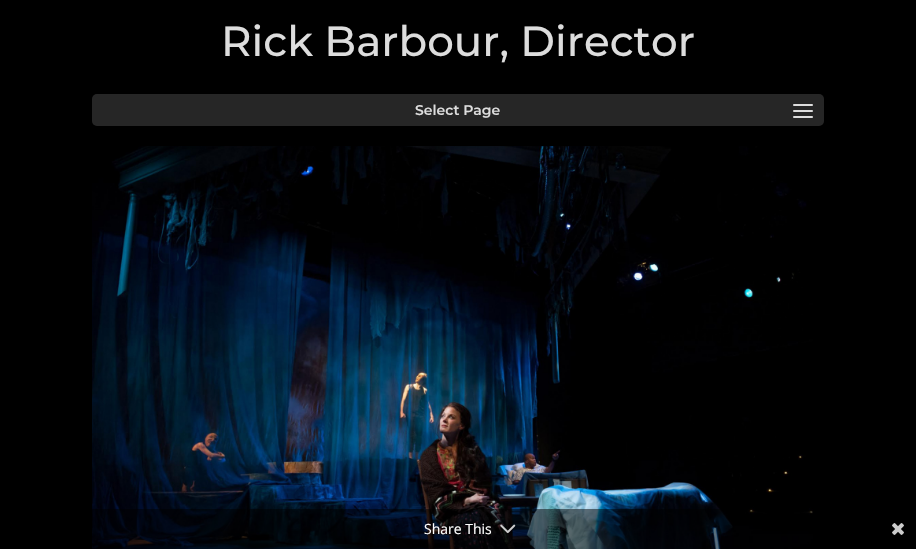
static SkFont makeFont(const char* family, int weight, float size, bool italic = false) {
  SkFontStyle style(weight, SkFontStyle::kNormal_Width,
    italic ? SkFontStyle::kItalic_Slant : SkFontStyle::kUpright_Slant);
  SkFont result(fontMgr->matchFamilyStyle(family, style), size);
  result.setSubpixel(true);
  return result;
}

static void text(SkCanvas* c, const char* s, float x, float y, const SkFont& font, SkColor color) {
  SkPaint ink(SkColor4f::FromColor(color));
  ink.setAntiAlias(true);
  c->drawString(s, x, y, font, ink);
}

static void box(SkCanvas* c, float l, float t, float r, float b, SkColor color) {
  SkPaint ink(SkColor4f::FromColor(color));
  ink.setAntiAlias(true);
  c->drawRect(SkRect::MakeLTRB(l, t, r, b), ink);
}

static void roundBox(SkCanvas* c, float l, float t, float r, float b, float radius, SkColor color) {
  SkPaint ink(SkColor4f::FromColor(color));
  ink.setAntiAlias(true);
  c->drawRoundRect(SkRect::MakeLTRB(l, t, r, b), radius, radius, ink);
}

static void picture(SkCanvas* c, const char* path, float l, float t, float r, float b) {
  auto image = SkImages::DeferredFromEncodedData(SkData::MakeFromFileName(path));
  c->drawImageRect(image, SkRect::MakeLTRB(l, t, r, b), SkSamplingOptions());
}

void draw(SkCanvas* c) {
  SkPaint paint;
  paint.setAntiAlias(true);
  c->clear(0xff000000);
  picture(c, "img_02.png", 92, 146, 813, 549);
  box(c, 450, 146, 589, 147, 0x1a000000);
  SkFont face1 = makeFont("Montserrat", 100, 42);
  text(c, "Rick Barbour, Director", 221, 56, face1, 0xffdddddd);
  roundBox(c, 92, 94, 824, 126, 5, 0xff262626);
  SkFont face2 = makeFont("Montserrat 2", 100, 14);
  text(c, "Select Page", 415, 115, face2, 0xffdddddd);
  picture(c, "img_01.png", 793, 104, 813, 118);
  box(c, 92, 509, 813, 549, 0x80000000);
  SkFont face3 = makeFont("Open Sans", 400, 14);
  text(c, "Share This", 424, 534, face3, 0xffffffff);
  picture(c, "img_03.png", 500, 524, 516, 534);
  picture(c, "img_04.png", 892, 523, 904, 535);
}
